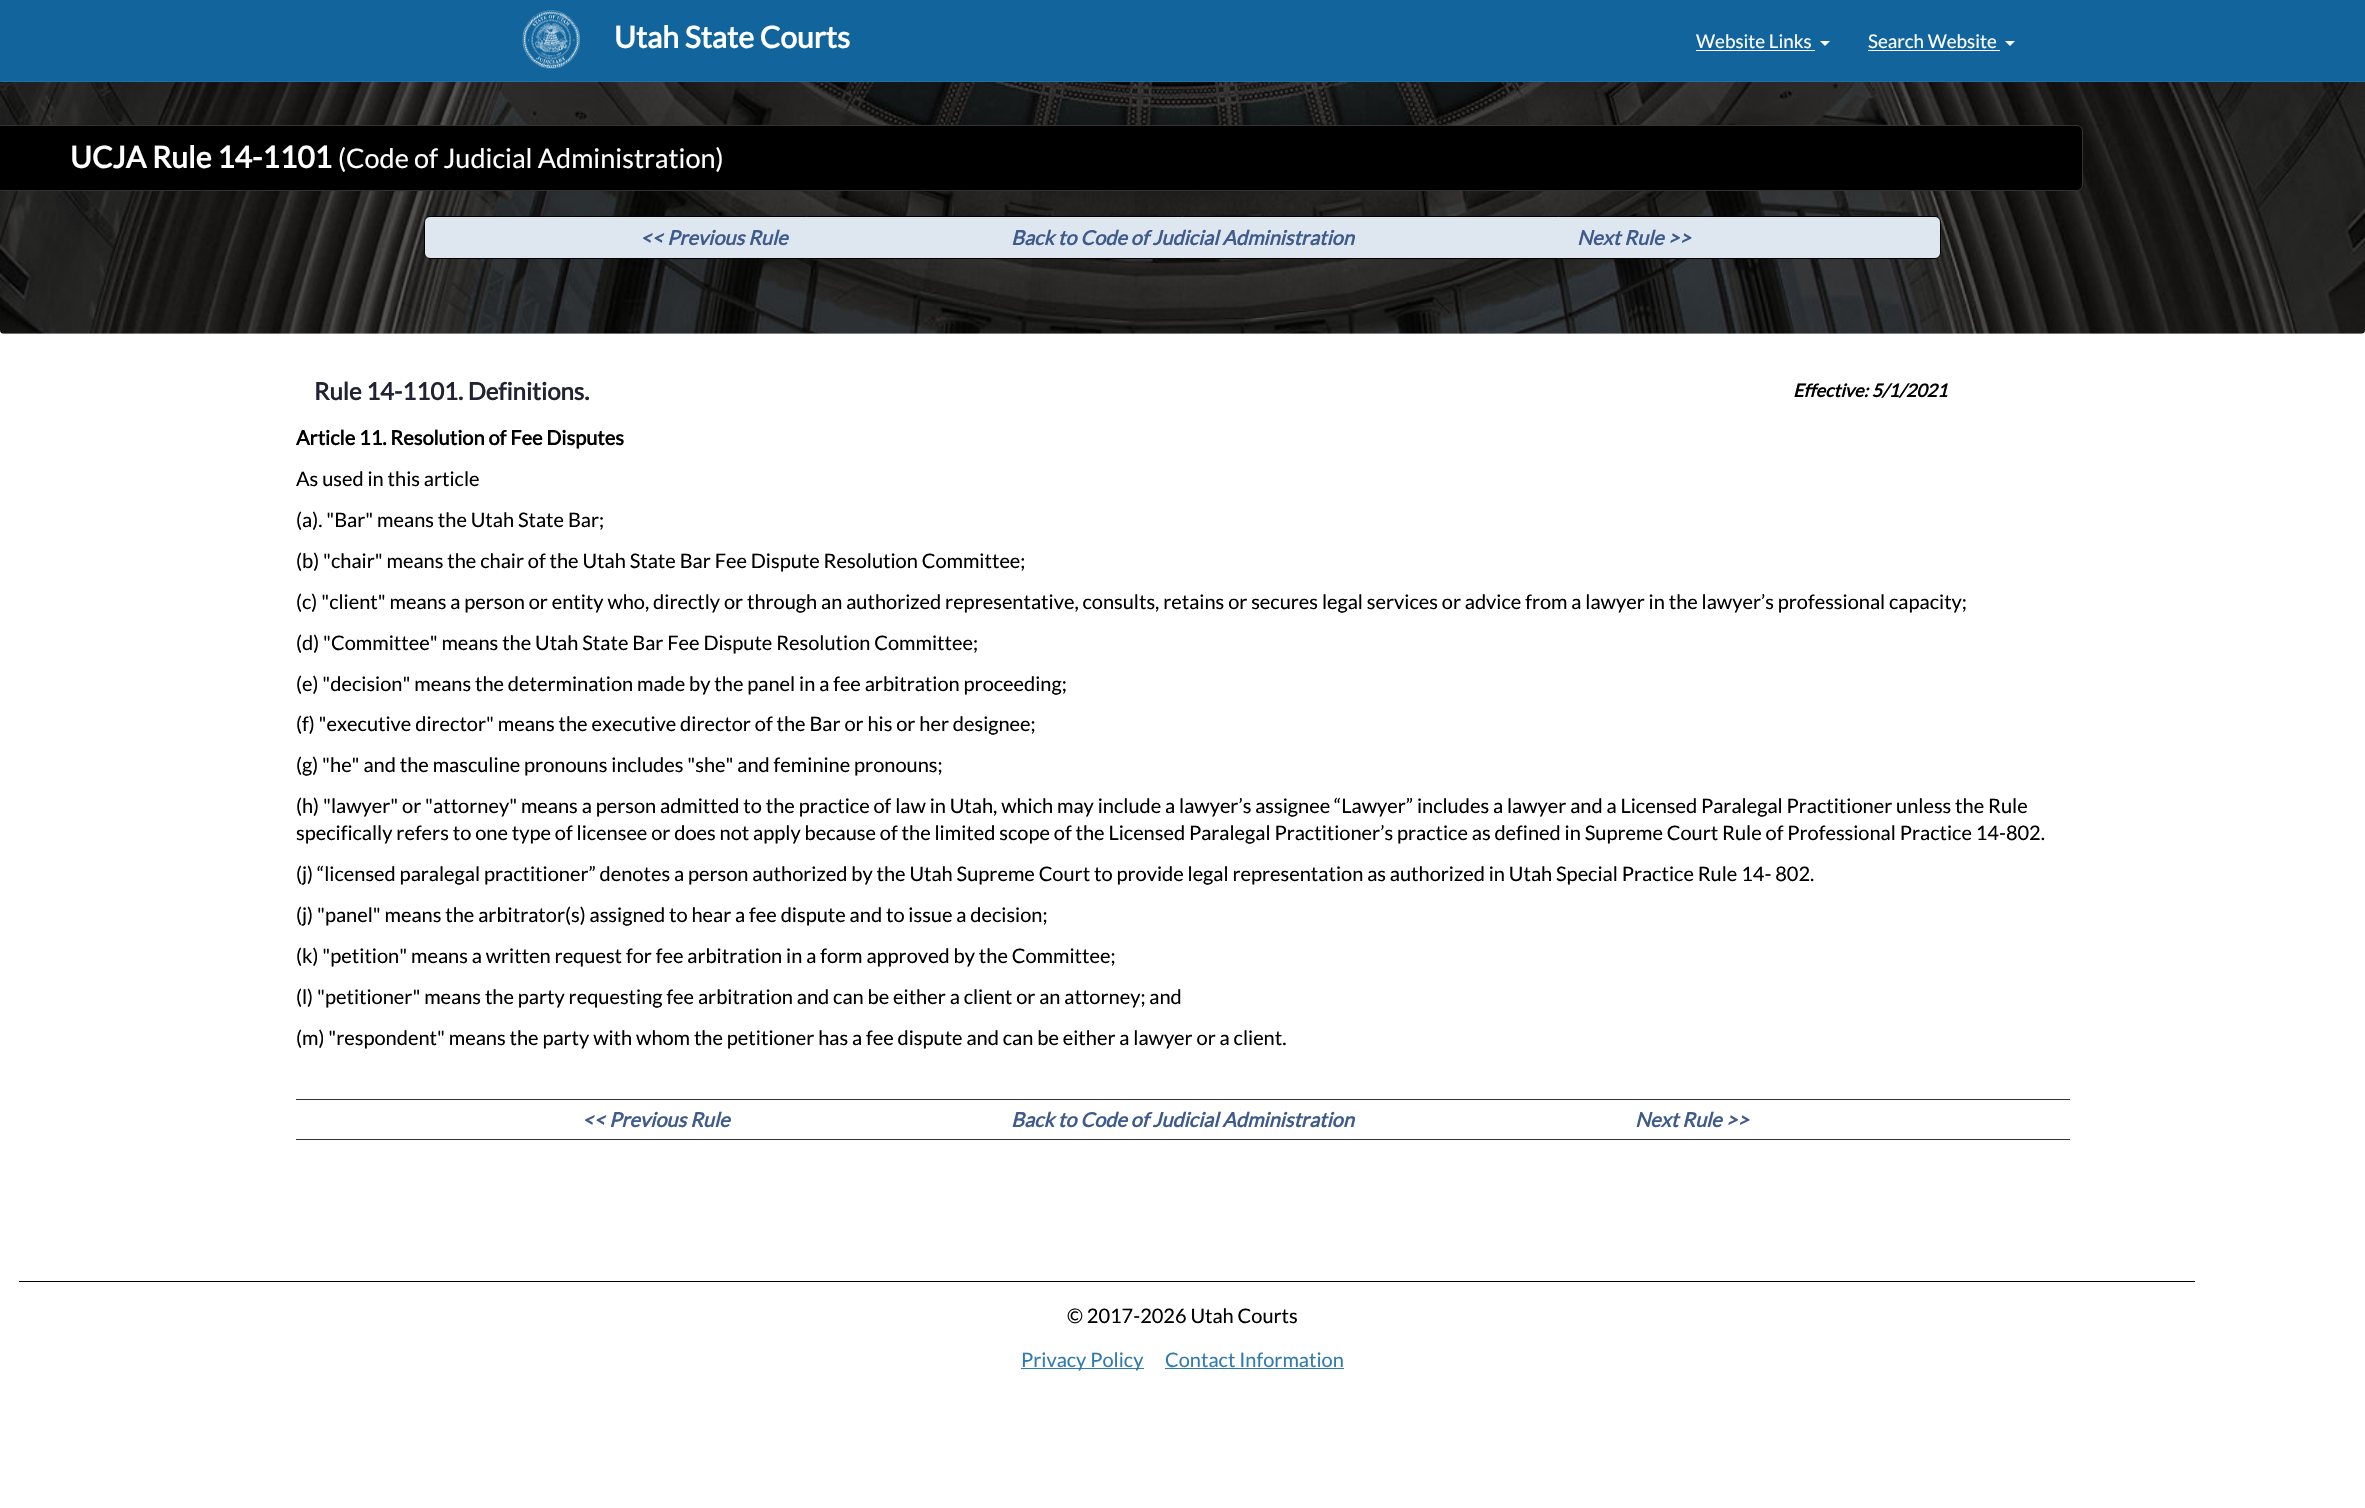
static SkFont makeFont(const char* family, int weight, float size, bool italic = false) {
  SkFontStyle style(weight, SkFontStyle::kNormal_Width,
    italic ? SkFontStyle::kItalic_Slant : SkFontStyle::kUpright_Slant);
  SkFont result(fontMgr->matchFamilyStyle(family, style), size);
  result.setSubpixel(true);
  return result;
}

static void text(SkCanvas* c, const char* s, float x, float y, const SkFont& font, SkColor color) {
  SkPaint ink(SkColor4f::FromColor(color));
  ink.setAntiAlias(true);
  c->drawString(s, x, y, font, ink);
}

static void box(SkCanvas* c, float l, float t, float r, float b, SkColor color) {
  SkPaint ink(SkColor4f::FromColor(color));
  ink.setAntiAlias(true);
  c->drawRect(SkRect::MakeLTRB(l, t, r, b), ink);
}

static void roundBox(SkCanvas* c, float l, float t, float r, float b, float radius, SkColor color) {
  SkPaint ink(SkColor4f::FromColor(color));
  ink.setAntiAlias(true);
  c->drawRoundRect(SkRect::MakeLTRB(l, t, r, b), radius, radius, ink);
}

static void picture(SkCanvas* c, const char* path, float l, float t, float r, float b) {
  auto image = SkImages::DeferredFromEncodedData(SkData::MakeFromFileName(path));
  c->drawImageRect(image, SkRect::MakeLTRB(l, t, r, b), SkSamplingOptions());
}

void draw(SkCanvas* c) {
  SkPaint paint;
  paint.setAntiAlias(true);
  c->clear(0xffffffff);
  roundBox(c, 0, 75, 2365, 334, 4, 0xffe9ecef);
  box(c, 0, 0, 2365, 81, 0xff11659c);
  box(c, 0, 81, 2365, 82, 0xff1c73a5);
  picture(c, "img_01.png", 522, 10, 580, 69);
  SkFont face1 = makeFont("Lato", 700, 30);
  text(c, "Utah State Courts", 614, 48, face1, 0xffffffff);
  SkFont face2 = makeFont("Lato", 400, 18.75f);
  text(c, "Website Links", 1696, 48, face2, 0xffffffff);
  box(c, 1696, 50, 1815, 51, 0xffffffff);
  paint.setColor(0xffffffff);
  c->drawPath(SkPathBuilder().moveTo(1820, 41).lineTo(1830, 41).lineTo(1825, 46).close().detach(), paint);
  text(c, "Search Website", 1868, 48, face2, 0xffffffff);
  box(c, 1868, 50, 2000, 51, 0xffffffff);
  c->drawPath(SkPathBuilder().moveTo(2005, 41).lineTo(2015, 41).lineTo(2010, 46).close().detach(), paint);
  picture(c, "img_02.png", 0, 82, 2365, 334);
  paint.setColor(0xff000000);
  c->drawRoundRect(SkRect::MakeLTRB(-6.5f, 125.5f, 2082.5f, 190.5f), 5.5f, 5.5f, paint);
  paint.setStyle(SkPaint::kStroke_Style);
  paint.setStrokeWidth(1);
  paint.setColor(0xff333333);
  c->drawRoundRect(SkRect::MakeLTRB(-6.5f, 125.5f, 2082.5f, 190.5f), 5.5f, 5.5f, paint);
  text(c, "UCJA Rule 14-1101", 70, 168, face1, 0xffffffff);
  SkFont face3 = makeFont("Lato", 400, 27);
  text(c, "(Code of Judicial Administration)", 338, 168, face3, 0xffffffff);
  paint.setStyle(SkPaint::kFill_Style);
  paint.setColor(0xffdee7ef);
  c->drawRoundRect(SkRect::MakeLTRB(424.5f, 216.5f, 1940.5f, 258.5f), 5.5f, 5.5f, paint);
  paint.setStyle(SkPaint::kStroke_Style);
  paint.setColor(0xff000000);
  c->drawRoundRect(SkRect::MakeLTRB(424.5f, 216.5f, 1940.5f, 258.5f), 5.5f, 5.5f, paint);
  SkFont face4 = makeFont("Lato", 700, 20, true);
  text(c, "<< Previous Rule", 640, 245, face4, 0xff3f5a8d);
  text(c, "Back to Code of Judicial Administration", 1011, 245, face4, 0xff3f5a8d);
  text(c, "Next Rule >>", 1577, 245, face4, 0xff3f5a8d);
  SkFont face5 = makeFont("Lato", 700, 24);
  text(c, "Rule 14-1101. Definitions.", 314, 400, face5, 0xff222233);
  SkFont face6 = makeFont("Lato", 700, 18, true);
  text(c, "Effective: 5/1/2021", 1793, 397, face6, 0xff000000);
  box(c, 296, 1099, 2070, 1100, 0xff333333);
  SkFont face7 = makeFont("Lato", 700, 20);
  text(c, "Article 11. Resolution of Fee Disputes", 296, 445, face7, 0xff000000);
  SkFont face8 = makeFont("Lato", 400, 20);
  text(c, "As used in this article", 296, 486, face8, 0xff000000);
  text(c, "(a). \"Bar\" means the Utah State Bar;", 296, 527, face8, 0xff000000);
  text(c, "(b) \"chair\" means the chair of the Utah State Bar Fee Dispute Resolution Committee;", 296, 568, face8, 0xff000000);
  text(c, "(c) \"client\" means a person or entity who, directly or through an authorized representative, consults, retains or secures legal services or advice from a lawyer in the lawyer’s professional capacity;", 296, 609, face8, 0xff000000);
  text(c, "(d) \"Committee\" means the Utah State Bar Fee Dispute Resolution Committee;", 296, 650, face8, 0xff000000);
  text(c, "(e) \"decision\" means the determination made by the panel in a fee arbitration proceeding;", 296, 691, face8, 0xff000000);
  text(c, "(f) \"executive director\" means the executive director of the Bar or his or her designee;", 296, 731, face8, 0xff000000);
  text(c, "(g) \"he\" and the masculine pronouns includes \"she\" and feminine pronouns;", 296, 772, face8, 0xff000000);
  text(c, "(h) \"lawyer\" or \"attorney\" means a person admitted to the practice of law in Utah, which may include a lawyer’s assignee “Lawyer” includes a lawyer and a Licensed Paralegal Practitioner unless the Rule", 296, 813, face8, 0xff000000);
  text(c, "specifically refers to one type of licensee or does not apply because of the limited scope of the Licensed Paralegal Practitioner’s practice as defined in Supreme Court Rule of Professional Practice 14-802.", 296, 840, face8, 0xff000000);
  text(c, "(j) “licensed paralegal practitioner” denotes a person authorized by the Utah Supreme Court to provide legal representation as authorized in Utah Special Practice Rule 14- 802.", 296, 881, face8, 0xff000000);
  text(c, "(j) \"panel\" means the arbitrator(s) assigned to hear a fee dispute and to issue a decision;", 296, 922, face8, 0xff000000);
  text(c, "(k) \"petition\" means a written request for fee arbitration in a form approved by the Committee;", 296, 963, face8, 0xff000000);
  text(c, "(l) \"petitioner\" means the party requesting fee arbitration and can be either a client or an attorney; and", 296, 1004, face8, 0xff000000);
  text(c, "(m) \"respondent\" means the party with whom the petitioner has a fee dispute and can be either a lawyer or a client.", 296, 1045, face8, 0xff000000);
  box(c, 296, 1139, 2070, 1140, 0xff333333);
  text(c, "<< Previous Rule", 582, 1127, face4, 0xff3f5a8d);
  text(c, "Back to Code of Judicial Administration", 1011, 1127, face4, 0xff3f5a8d);
  text(c, "Next Rule >>", 1635, 1127, face4, 0xff3f5a8d);
  box(c, 19, 1281, 2195, 1282, 0xff000000);
  text(c, "© 2017-2026 Utah Courts", 1067, 1323, face8, 0xff000000);
  box(c, 1021, 1368, 1144, 1369, 0xff2f7bb1);
  text(c, "Privacy Policy", 1021, 1367, face8, 0xff2f7bb1);
  text(c, "Contact Information", 1165, 1367, face8, 0xff2f7bb1);
  box(c, 1165, 1368, 1344, 1369, 0xff2f7bb1);
}
